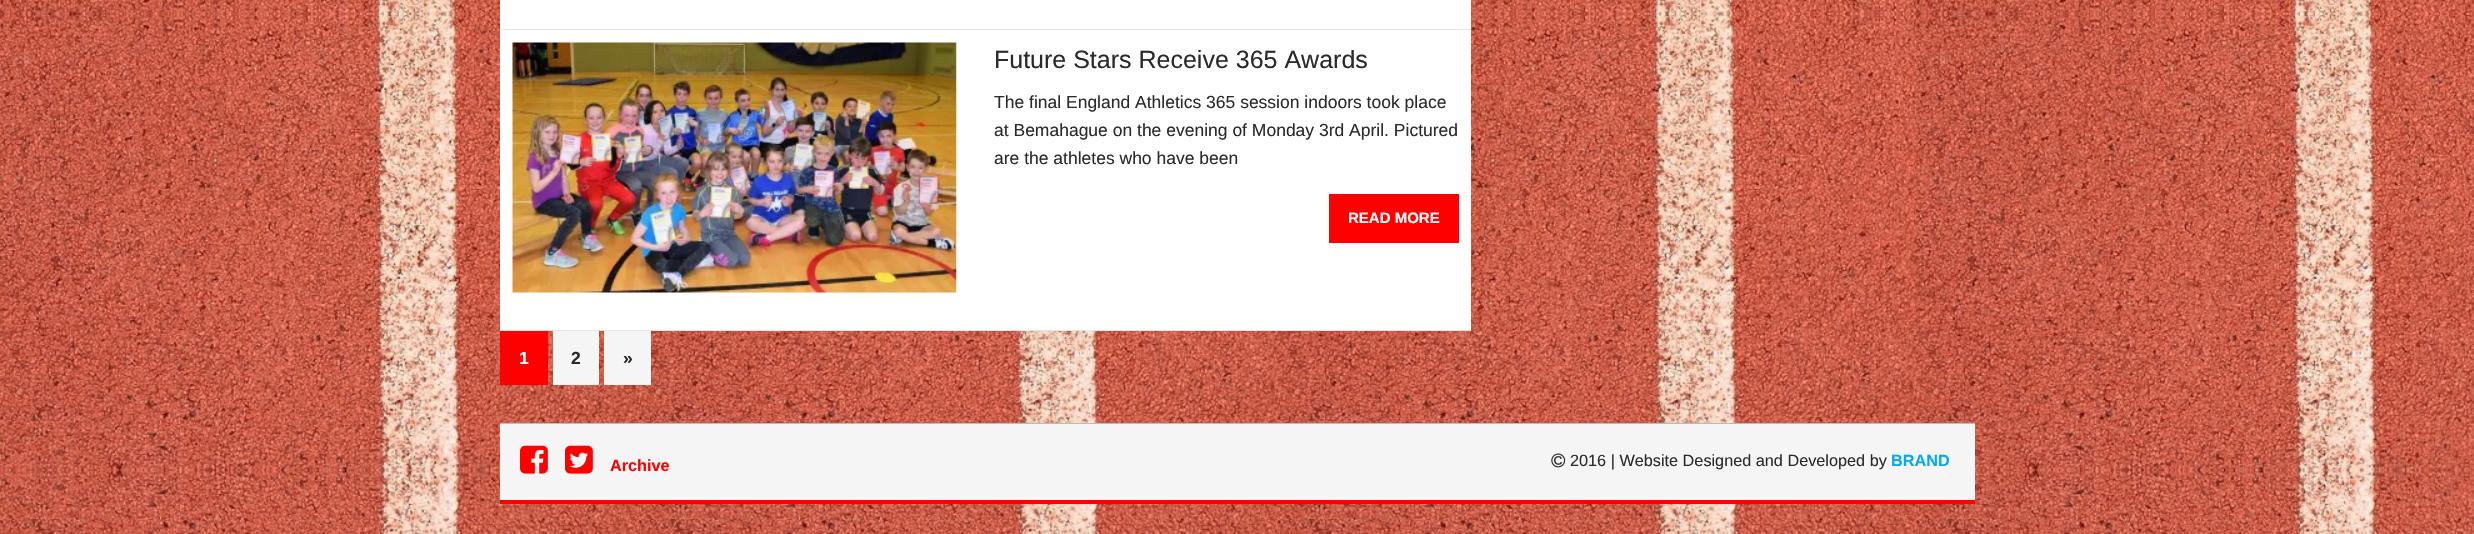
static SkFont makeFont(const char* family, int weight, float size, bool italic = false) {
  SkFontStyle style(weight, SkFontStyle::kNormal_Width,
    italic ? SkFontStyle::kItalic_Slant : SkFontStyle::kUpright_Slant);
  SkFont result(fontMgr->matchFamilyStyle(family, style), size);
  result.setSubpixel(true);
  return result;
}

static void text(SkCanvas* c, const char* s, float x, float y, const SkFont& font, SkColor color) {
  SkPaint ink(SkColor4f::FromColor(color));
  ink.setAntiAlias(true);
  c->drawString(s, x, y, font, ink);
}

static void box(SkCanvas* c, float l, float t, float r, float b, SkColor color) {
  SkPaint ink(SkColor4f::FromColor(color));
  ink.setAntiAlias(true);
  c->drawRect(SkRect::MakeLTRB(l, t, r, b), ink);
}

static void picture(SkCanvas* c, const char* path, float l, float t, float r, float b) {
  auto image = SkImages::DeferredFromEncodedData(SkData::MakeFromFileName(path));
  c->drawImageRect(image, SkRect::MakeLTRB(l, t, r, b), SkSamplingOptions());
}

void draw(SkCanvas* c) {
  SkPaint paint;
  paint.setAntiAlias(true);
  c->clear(0xffffffff);
  picture(c, "img_01.png", 0, 0, 2474, 534);
  box(c, 500, 0, 1471, 29, 0xffffffff);
  box(c, 500, 29, 1471, 30, 0xffe5e5e5);
  box(c, 500, 30, 1471, 330, 0xffffffff);
  box(c, 500, 330, 1471, 331, 0xffe5e5e5);
  picture(c, "img_02.png", 512, 42, 957, 293);
  SkFont face1 = makeFont("Liberation Sans", 400, 25);
  text(c, "Future Stars Receive 365 Awards", 994, 68, face1, 0xff2a2a2a);
  SkFont face2 = makeFont("Liberation Sans", 400, 17.5f);
  text(c, "The final England Athletics 365 session indoors took place", 994, 108, face2, 0xff2a2a2a);
  text(c, "at Bemahague on the evening of Monday 3rd April. Pictured", 994, 136, face2, 0xff2a2a2a);
  text(c, "are the athletes who have been", 994, 164, face2, 0xff2a2a2a);
  box(c, 1329, 194, 1459, 243, 0xffff0000);
  SkFont face3 = makeFont("Liberation Sans", 700, 15);
  text(c, "READ MORE", 1348, 223, face3, 0xffffffff);
  box(c, 500, 331, 548, 385, 0xffff0000);
  SkFont face4 = makeFont("Liberation Sans", 700, 17.5f);
  text(c, "1", 519, 364, face4, 0xffffffff);
  box(c, 553, 331, 599, 385, 0xfff5f5f5);
  text(c, "2", 571, 364, face4, 0xff2a2a2a);
  box(c, 604, 331, 651, 385, 0xfff5f5f5);
  text(c, "»", 623, 364, face4, 0xff2a2a2a);
  box(c, 500, 424, 1975, 500, 0xfff5f5f5);
  box(c, 500, 423, 1975, 424, 0xffbbbbbb);
  box(c, 500, 500, 1975, 504, 0xffff0000);
  picture(c, "img_03.png", 520, 445, 548, 474);
  picture(c, "img_04.png", 565, 445, 593, 474);
  SkFont face5 = makeFont("Liberation Sans", 700, 16.25f);
  text(c, "Archive", 610, 471, face5, 0xffff0000);
  picture(c, "img_05.png", 1551, 453, 1566, 468);
  SkFont face6 = makeFont("Liberation Sans", 400, 16.25f);
  text(c, "2016 | Website Designed and Developed by", 1570, 466, face6, 0xff2a2a2a);
  text(c, "BRAND", 1891, 466, face5, 0xff07abec);
}
